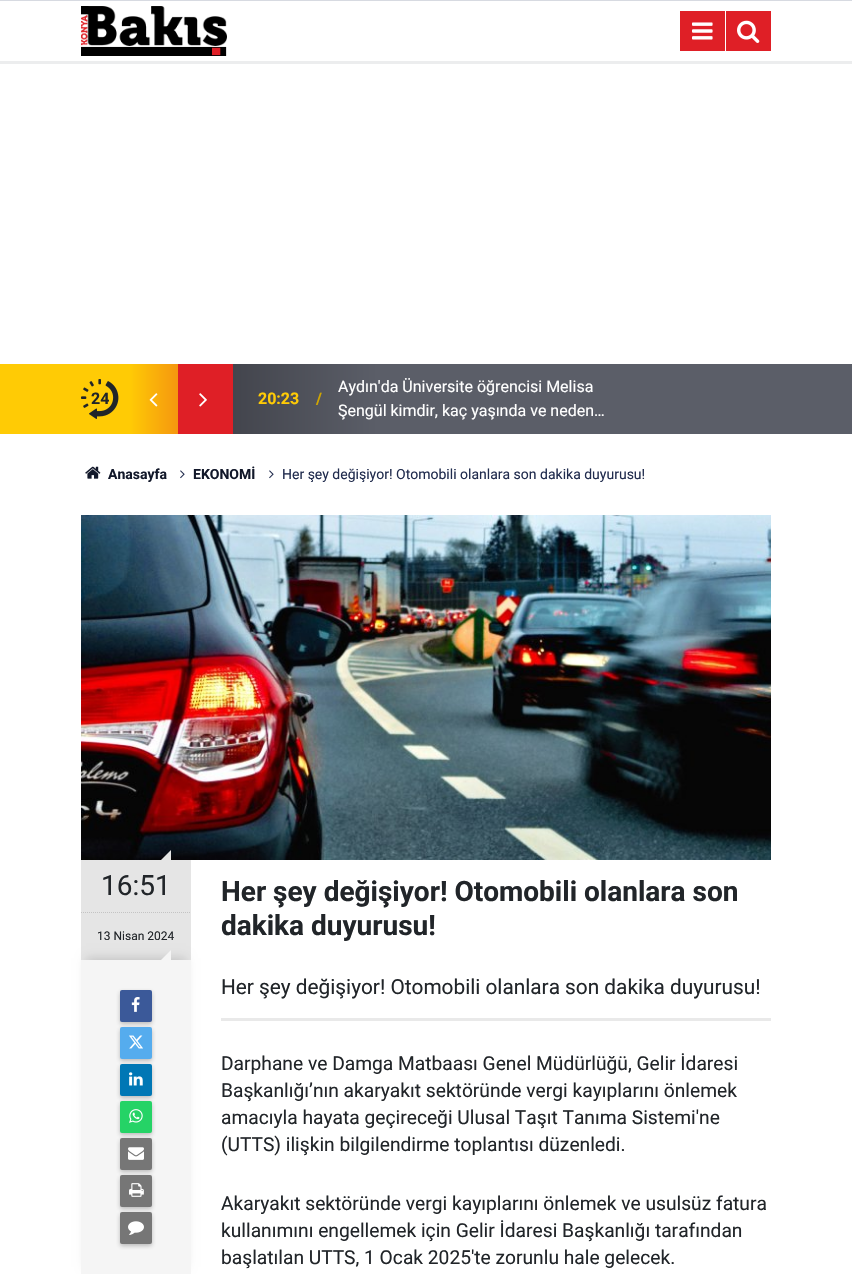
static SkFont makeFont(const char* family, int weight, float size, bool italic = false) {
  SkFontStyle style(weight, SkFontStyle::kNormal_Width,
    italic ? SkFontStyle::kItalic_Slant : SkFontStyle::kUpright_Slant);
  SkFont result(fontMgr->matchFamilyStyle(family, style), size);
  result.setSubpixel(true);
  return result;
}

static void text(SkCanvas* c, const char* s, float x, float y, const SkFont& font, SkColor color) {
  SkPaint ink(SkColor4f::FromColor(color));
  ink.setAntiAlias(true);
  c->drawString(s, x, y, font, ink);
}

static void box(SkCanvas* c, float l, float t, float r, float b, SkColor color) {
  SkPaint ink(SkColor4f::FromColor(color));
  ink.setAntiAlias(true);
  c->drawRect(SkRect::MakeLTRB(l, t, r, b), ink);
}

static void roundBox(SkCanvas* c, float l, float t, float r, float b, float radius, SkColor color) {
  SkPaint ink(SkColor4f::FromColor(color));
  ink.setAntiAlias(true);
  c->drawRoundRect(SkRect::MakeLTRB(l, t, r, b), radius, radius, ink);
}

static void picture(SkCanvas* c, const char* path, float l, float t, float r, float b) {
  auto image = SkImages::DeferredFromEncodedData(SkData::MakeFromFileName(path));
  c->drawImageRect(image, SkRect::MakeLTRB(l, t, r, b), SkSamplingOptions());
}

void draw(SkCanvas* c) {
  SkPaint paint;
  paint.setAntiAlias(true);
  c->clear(0xffffffff);
  box(c, 0, 0, 852, 1, 0xffd7dae1);
  box(c, 0, 61, 852, 64, 0xffecedee);
  picture(c, "img_01.png", 81, 6, 227, 56);
  box(c, 680, 11, 725, 51, 0xffdf1f26);
  picture(c, "img_02.png", 692, 22, 713, 40);
  box(c, 726, 11, 771, 51, 0xffdf1f26);
  picture(c, "img_03.png", 737, 20, 760, 43);
  box(c, 0, 364, 81, 434, 0xffffcb05);
  box(c, 771, 364, 852, 434, 0xff5b5e68);
  {
    const SkColor colors[] = {0xffffcb05, 0xfff5970f, 0xffdf1f26, 0xffdf1f26, 0xff43454d, 0xff5b5e68};
    const float stops[] = {0.07f, 0.14f, 0.14f, 0.22f, 0.22f, 0.43f};
    const SkPoint ends[] = {{81, 399}, {771, 399}};
    paint.setShader(SkGradientShader::MakeLinear(ends, colors, stops, 6, SkTileMode::kClamp));
    paint.setAlpha(255);
  }
  c->drawRect(SkRect::MakeLTRB(81, 364, 771, 434), paint);
  picture(c, "img_04.png", 81, 379, 119, 419);
  SkFont face1 = makeFont("Roboto", 700, 16);
  text(c, "24", 91, 404, face1, 0xff212529);
  picture(c, "img_05.png", 149, 393, 158, 407);
  picture(c, "img_06.png", 199, 393, 207, 407);
  text(c, "20:23", 258, 404, face1, 0xffffcb05);
  text(c, "/", 316, 404, face1, 0xffd1a600);
  SkFont face2 = makeFont("Roboto", 400, 16);
  text(c, "Aydın'da Üniversite öğrencisi Melisa", 338, 392, face2, 0xffffffff);
  text(c, "Şengül kimdir, kaç yaşında ve neden…", 338, 416, face2, 0xffffffff);
  picture(c, "img_07.png", 85, 466, 101, 479);
  SkFont face3 = makeFont("Roboto", 700, 14);
  text(c, "Anasayfa", 108, 479, face3, 0xff12182a);
  picture(c, "img_08.png", 180, 470, 185, 479);
  text(c, "EKONOMİ", 193, 479, face3, 0xff12182a);
  picture(c, "img_08.png", 269, 470, 274, 479);
  SkFont face4 = makeFont("Roboto", 400, 14);
  text(c, "Her şey değişiyor! Otomobili olanlara son dakika duyurusu!", 282, 479, face4, 0xff212c4e);
  picture(c, "img_09.png", 81, 515, 771, 860);
  box(c, 81, 860, 191, 960, 0xffe5e5e5);
  paint.setShader(nullptr);
  paint.setColor(0xffe5e5e5);
  c->drawPath(SkPathBuilder().moveTo(171, 860).lineTo(161, 860).lineTo(171, 850).close().detach(), paint);
  SkFont face5 = makeFont("Roboto", 400, 28);
  text(c, "16:51", 101, 895, face5, 0xff212529);
  paint.setStyle(SkPaint::kStroke_Style);
  paint.setStrokeWidth(1);
  paint.setColor(0xffc3c3c3);
  paint.setPathEffect(SkDashPathEffect::Make({{1, 1}}, 0));
  c->drawPath(SkPathBuilder().moveTo(81, 912.5f).lineTo(191, 912.5f).detach(), paint);
  paint.setPathEffect(nullptr);
  SkFont face6 = makeFont("Roboto", 400, 12);
  text(c, "13 Nisan 2024", 97, 940, face6, 0xff212529);
  paint.setStyle(SkPaint::kFill_Style);
  paint.setColor(0x26000000);
  paint.setMaskFilter(SkMaskFilter::MakeBlur(kNormal_SkBlurStyle, 5));
  c->drawRect(SkRect::MakeLTRB(86, 958, 186, 1267), paint);
  paint.setMaskFilter(nullptr);
  box(c, 81, 960, 191, 1274, 0xfff5f5f5);
  paint.setColor(0xfff5f5f5);
  c->drawPath(SkPathBuilder().moveTo(171, 960).lineTo(161, 960).lineTo(171, 950).close().detach(), paint);
  paint.setColor(0x4d323232);
  paint.setMaskFilter(SkMaskFilter::MakeBlur(kNormal_SkBlurStyle, 2));
  c->drawRoundRect(SkRect::MakeLTRB(120, 992, 152, 1024), 2, 2, paint);
  paint.setMaskFilter(nullptr);
  roundBox(c, 120, 990, 152, 1022, 2, 0xff3b5999);
  picture(c, "img_10.png", 131, 997, 140, 1012);
  paint.setMaskFilter(SkMaskFilter::MakeBlur(kNormal_SkBlurStyle, 2));
  c->drawRoundRect(SkRect::MakeLTRB(120, 1029, 152, 1061), 2, 2, paint);
  paint.setMaskFilter(nullptr);
  roundBox(c, 120, 1027, 152, 1059, 2, 0xff55acee);
  picture(c, "img_11.png", 129, 1035, 143, 1049);
  paint.setMaskFilter(SkMaskFilter::MakeBlur(kNormal_SkBlurStyle, 2));
  c->drawRoundRect(SkRect::MakeLTRB(120, 1066, 152, 1098), 2, 2, paint);
  paint.setMaskFilter(nullptr);
  roundBox(c, 120, 1064, 152, 1096, 2, 0xff0077b5);
  picture(c, "img_12.png", 129, 1072, 143, 1086);
  paint.setMaskFilter(SkMaskFilter::MakeBlur(kNormal_SkBlurStyle, 2));
  c->drawRoundRect(SkRect::MakeLTRB(120, 1103, 152, 1135), 2, 2, paint);
  paint.setMaskFilter(nullptr);
  roundBox(c, 120, 1101, 152, 1133, 2, 0xff25d366);
  picture(c, "img_13.png", 129, 1109, 143, 1123);
  paint.setMaskFilter(SkMaskFilter::MakeBlur(kNormal_SkBlurStyle, 2));
  c->drawRoundRect(SkRect::MakeLTRB(120, 1140, 152, 1172), 2, 2, paint);
  paint.setMaskFilter(nullptr);
  roundBox(c, 120, 1138, 152, 1170, 2, 0xff767676);
  picture(c, "img_14.png", 128, 1147, 144, 1160);
  paint.setMaskFilter(SkMaskFilter::MakeBlur(kNormal_SkBlurStyle, 2));
  c->drawRoundRect(SkRect::MakeLTRB(120, 1177, 152, 1209), 2, 2, paint);
  paint.setMaskFilter(nullptr);
  roundBox(c, 120, 1175, 152, 1207, 2, 0xff767676);
  picture(c, "img_15.png", 129, 1183, 144, 1197);
  paint.setMaskFilter(SkMaskFilter::MakeBlur(kNormal_SkBlurStyle, 2));
  c->drawRoundRect(SkRect::MakeLTRB(120, 1214, 152, 1246), 2, 2, paint);
  paint.setMaskFilter(nullptr);
  roundBox(c, 120, 1212, 152, 1244, 2, 0xff767676);
  picture(c, "img_16.png", 128, 1221, 144, 1235);
  box(c, 221, 1018, 771, 1021, 0xffe9e9e9);
  SkFont face7 = makeFont("Roboto", 700, 28);
  text(c, "Her şey değişiyor! Otomobili olanlara son", 221, 901, face7, 0xff212529);
  text(c, "dakika duyurusu!", 221, 935, face7, 0xff212529);
  SkFont face8 = makeFont("Roboto", 400, 20.8f);
  text(c, "Her şey değişiyor! Otomobili olanlara son dakika duyurusu!", 221, 994, face8, 0xff212529);
  SkFont face9 = makeFont("Roboto", 400, 19.2f);
  text(c, "Darphane ve Damga Matbaası Genel Müdürlüğü, Gelir İdaresi", 221, 1070, face9, 0xff212529);
  text(c, "Başkanlığı’nın akaryakıt sektöründe vergi kayıplarını önlemek", 221, 1097, face9, 0xff212529);
  text(c, "amacıyla hayata geçireceği Ulusal Taşıt Tanıma Sistemi'ne", 221, 1124, face9, 0xff212529);
  text(c, "(UTTS) ilişkin bilgilendirme toplantısı düzenledi.", 221, 1151, face9, 0xff212529);
  text(c, "Akaryakıt sektöründe vergi kayıplarını önlemek ve usulsüz fatura", 221, 1210, face9, 0xff212529);
  text(c, "kullanımını engellemek için Gelir İdaresi Başkanlığı tarafından", 221, 1237, face9, 0xff212529);
  text(c, "başlatılan UTTS, 1 Ocak 2025'te zorunlu hale gelecek.", 221, 1264, face9, 0xff212529);
}
